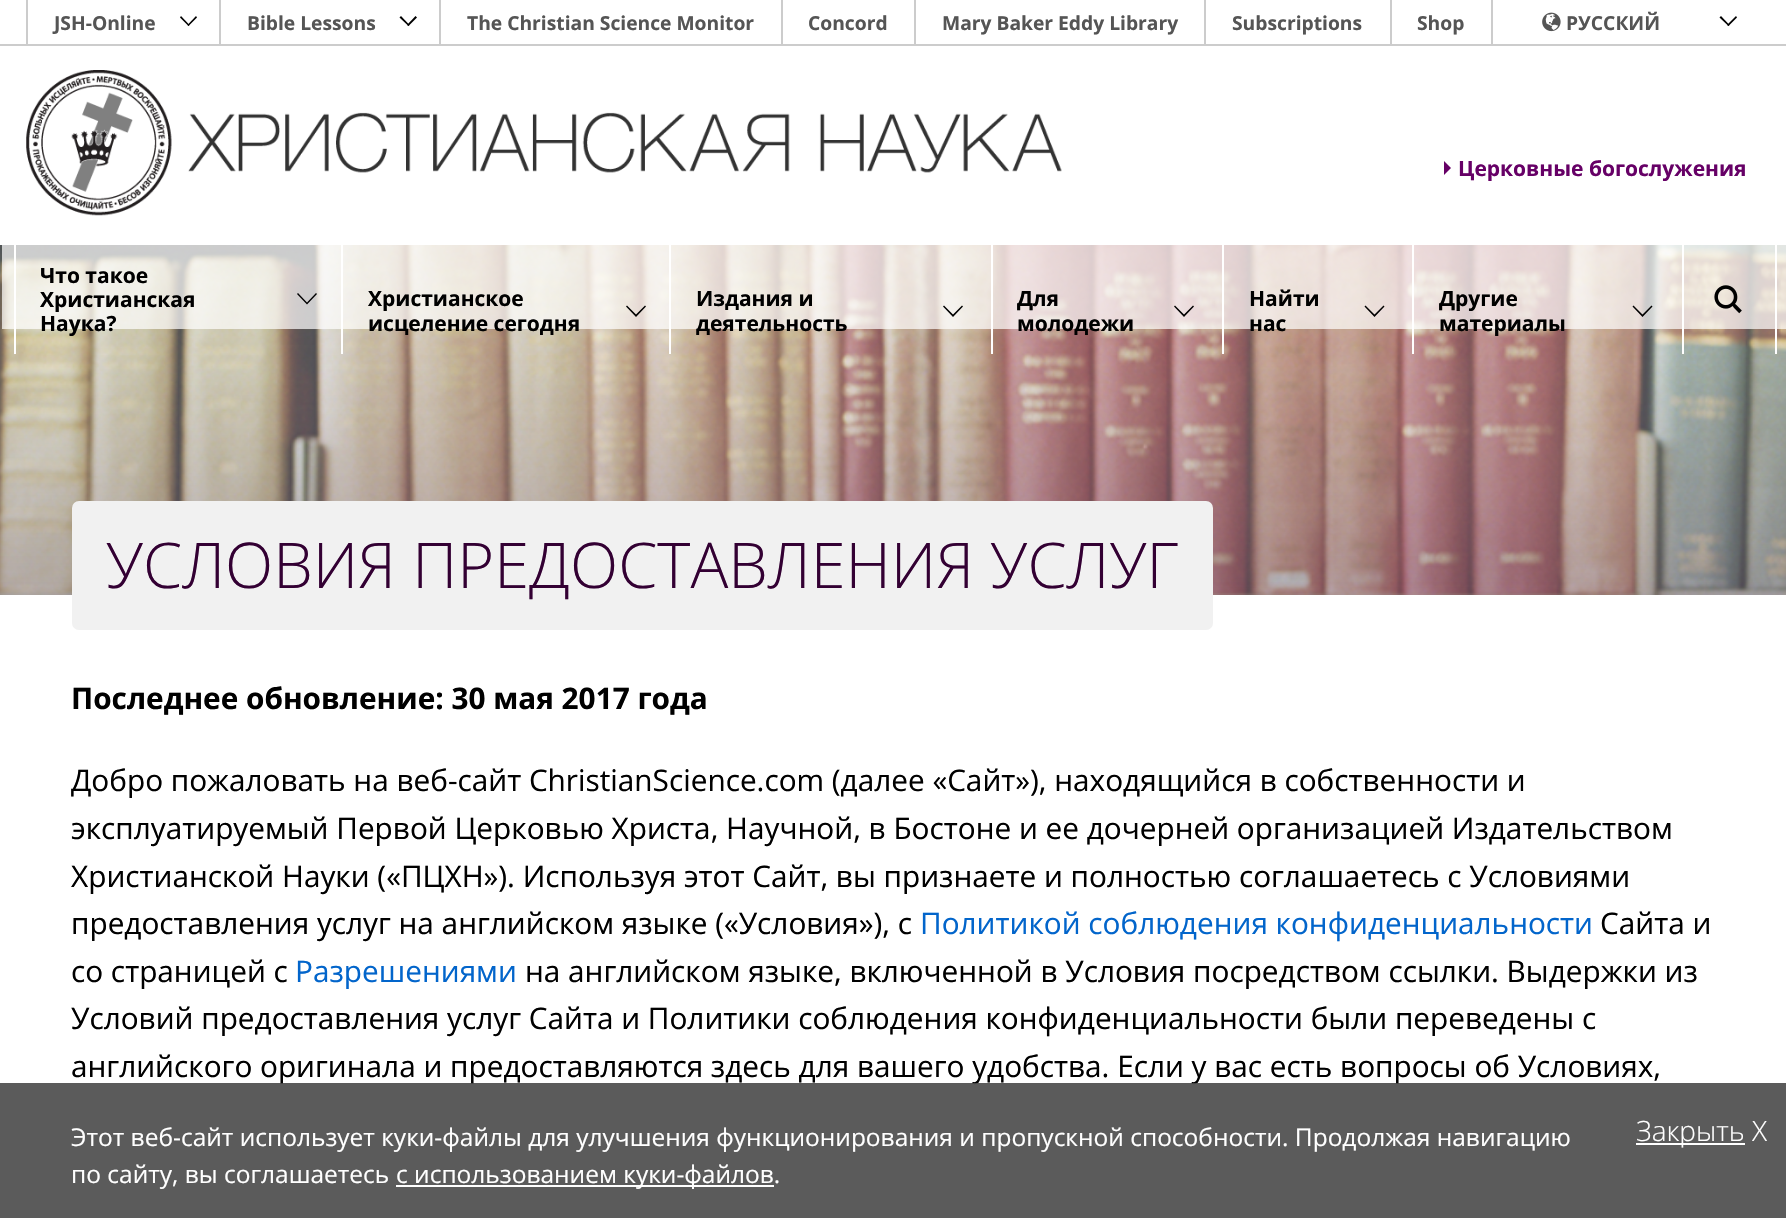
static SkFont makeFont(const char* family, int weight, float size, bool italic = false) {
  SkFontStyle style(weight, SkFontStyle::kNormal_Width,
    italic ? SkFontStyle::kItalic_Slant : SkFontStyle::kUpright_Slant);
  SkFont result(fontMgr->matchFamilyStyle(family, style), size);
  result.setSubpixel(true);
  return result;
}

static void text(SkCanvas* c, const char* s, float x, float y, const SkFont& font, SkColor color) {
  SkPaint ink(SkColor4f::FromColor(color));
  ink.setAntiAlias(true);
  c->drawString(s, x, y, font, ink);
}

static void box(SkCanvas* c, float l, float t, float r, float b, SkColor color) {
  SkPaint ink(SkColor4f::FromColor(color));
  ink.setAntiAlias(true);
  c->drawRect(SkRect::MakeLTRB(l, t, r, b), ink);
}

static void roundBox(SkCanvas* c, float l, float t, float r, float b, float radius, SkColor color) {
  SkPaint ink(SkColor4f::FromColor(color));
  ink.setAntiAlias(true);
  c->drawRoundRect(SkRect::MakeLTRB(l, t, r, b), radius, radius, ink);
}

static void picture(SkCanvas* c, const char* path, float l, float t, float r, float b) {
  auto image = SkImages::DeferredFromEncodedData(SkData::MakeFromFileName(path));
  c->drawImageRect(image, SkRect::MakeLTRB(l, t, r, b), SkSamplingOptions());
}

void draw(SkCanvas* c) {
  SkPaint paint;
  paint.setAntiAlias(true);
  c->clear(0xffffffff);
  box(c, 26, 0, 28, 44, 0xffcccccc);
  box(c, 0, 44, 1786, 46, 0xffcccccc);
  box(c, 219, 0, 221, 46, 0xffcccccc);
  SkFont face1 = makeFont("Open Sans", 700, 19.25f);
  text(c, "JSH-Online", 54, 30, face1, 0xff555555);
  paint.setColor(0xff000000);
  c->drawPath(SkPathBuilder().moveTo(188.5f, 26).lineTo(180, 17.5f).lineTo(181, 16).lineTo(189.5f, 25).close().detach(), paint);
  c->drawPath(SkPathBuilder().moveTo(188.5f, 26).lineTo(187.5f, 25).lineTo(196, 16).lineTo(197, 17.5f).close().detach(), paint);
  box(c, 439, 0, 441, 46, 0xffcccccc);
  text(c, "Bible Lessons", 247, 30, face1, 0xff555555);
  c->drawPath(SkPathBuilder().moveTo(408.5f, 26).lineTo(399.5f, 17.5f).lineTo(401, 16).lineTo(409.5f, 25).close().detach(), paint);
  c->drawPath(SkPathBuilder().moveTo(408.5f, 26).lineTo(407, 25).lineTo(415.5f, 16).lineTo(417, 17.5f).close().detach(), paint);
  box(c, 781, 0, 783, 46, 0xffcccccc);
  text(c, "The Christian Science Monitor", 467, 30, face1, 0xff555555);
  box(c, 914, 0, 916, 46, 0xffcccccc);
  text(c, "Concord", 808, 30, face1, 0xff555555);
  box(c, 1204, 0, 1206, 46, 0xffcccccc);
  text(c, "Mary Baker Eddy Library", 942, 30, face1, 0xff555555);
  box(c, 1390, 0, 1392, 46, 0xffcccccc);
  text(c, "Subscriptions", 1232, 30, face1, 0xff555555);
  box(c, 1491, 0, 1493, 46, 0xffcccccc);
  text(c, "Shop", 1417, 30, face1, 0xff555555);
  picture(c, "img_01.png", 1542, 12, 1561, 32);
  text(c, "РУССКИЙ", 1566, 30, face1, 0xff555555);
  c->drawPath(SkPathBuilder().moveTo(1728.5f, 26).lineTo(1719.5f, 17.5f).lineTo(1721, 16).lineTo(1729.5f, 25).close().detach(), paint);
  c->drawPath(SkPathBuilder().moveTo(1728.5f, 26).lineTo(1727, 25).lineTo(1736, 16).lineTo(1737, 17.5f).close().detach(), paint);
  picture(c, "img_02.png", 26, 70, 1062, 216);
  paint.setColor(0xff660066);
  c->drawPath(SkPathBuilder().moveTo(1444, 175).lineTo(1444, 161).lineTo(1451, 168).close().detach(), paint);
  SkFont face2 = makeFont("Open Sans", 700, 21);
  text(c, "Церковные богослужения", 1458, 176, face2, 0xff660066);
  picture(c, "img_04.png", 0, 245, 1786, 595);
  picture(c, "img_05.png", 0, 245, 1786, 595);
  box(c, 2, 245, 1786, 329, 0xb3ffffff);
  box(c, 341, 242, 343, 354, 0xffffffff);
  box(c, 14, 242, 16, 354, 0xffffffff);
  text(c, "Что такое", 40, 283, face2, 0xff000000);
  text(c, "Христианская", 40, 307, face2, 0xff000000);
  text(c, "Наука?", 40, 331, face2, 0xff000000);
  paint.setColor(0xff000000);
  c->drawPath(SkPathBuilder().moveTo(297, 294).lineTo(298, 293).lineTo(307, 302.5f).lineTo(316, 293).lineTo(317, 294).lineTo(307, 304.5f).close().detach(), paint);
  box(c, 669, 242, 671, 354, 0xffffffff);
  text(c, "Христианское", 368, 306, face2, 0xff000000);
  text(c, "исцеление сегодня", 368, 331, face2, 0xff000000);
  c->drawPath(SkPathBuilder().moveTo(626, 306.5f).lineTo(627, 305.5f).lineTo(636, 314.5f).lineTo(645, 305.5f).lineTo(646, 306.5f).lineTo(636, 317).close().detach(), paint);
  box(c, 991, 242, 993, 354, 0xffffffff);
  text(c, "Издания и", 696, 306, face2, 0xff000000);
  text(c, "деятельность", 696, 331, face2, 0xff000000);
  c->drawPath(SkPathBuilder().moveTo(943, 306.5f).lineTo(944, 305.5f).lineTo(953, 314.5f).lineTo(962, 305.5f).lineTo(963, 306.5f).lineTo(953, 317).close().detach(), paint);
  box(c, 1222, 242, 1224, 354, 0xffffffff);
  text(c, "Для", 1017, 306, face2, 0xff000000);
  text(c, "молодежи", 1017, 331, face2, 0xff000000);
  c->drawPath(SkPathBuilder().moveTo(1174, 306.5f).lineTo(1175, 305.5f).lineTo(1184, 314.5f).lineTo(1193, 305.5f).lineTo(1194, 306.5f).lineTo(1184, 317).close().detach(), paint);
  box(c, 1412, 242, 1414, 354, 0xffffffff);
  text(c, "Найти", 1249, 306, face2, 0xff000000);
  text(c, "нас", 1249, 331, face2, 0xff000000);
  c->drawPath(SkPathBuilder().moveTo(1364.5f, 306.5f).lineTo(1365.5f, 305.5f).lineTo(1374.5f, 314.5f).lineTo(1383.5f, 305.5f).lineTo(1384.5f, 306.5f).lineTo(1374.5f, 317).close().detach(), paint);
  box(c, 1682, 242, 1684, 354, 0xffffffff);
  text(c, "Другие", 1439, 306, face2, 0xff000000);
  text(c, "материалы", 1439, 331, face2, 0xff000000);
  c->drawPath(SkPathBuilder().moveTo(1632.5f, 306.5f).lineTo(1633.5f, 305.5f).lineTo(1642.5f, 314.5f).lineTo(1651.5f, 305.5f).lineTo(1652.5f, 306.5f).lineTo(1642.5f, 317).close().detach(), paint);
  box(c, 1775, 242, 1777, 354, 0xffffffff);
  picture(c, "img_03.png", 1714, 285, 1742, 314);
  roundBox(c, 72, 501, 1213, 630, 7, 0xfff1f1f1);
  SkFont face3 = makeFont("Open Sans", 300, 63);
  text(c, "УСЛОВИЯ ПРЕДОСТАВЛЕНИЯ УСЛУГ", 106, 588, face3, 0xff330033);
  SkFont face4 = makeFont("Open Sans", 700, 29.75f);
  text(c, "Последнее обновление: 30 мая 2017 года", 71, 709, face4, 0xff000000);
  SkFont face5 = makeFont("Open Sans", 400, 29.75f);
  text(c, "Добро пожаловать на веб-сайт ChristianScience.com (далее «Сайт»), находящийся в собственности и", 71, 791, face5, 0xff000000);
  text(c, "эксплуатируемый Первой Церковью Христа, Научной, в Бостоне и ее дочерней организацией Издательством", 71, 839, face5, 0xff000000);
  text(c, "Христианской Науки («ПЦХН»). Используя этот Сайт, вы признаете и полностью соглашаетесь с Условиями", 71, 887, face5, 0xff000000);
  text(c, "предоставления услуг на английском языке («Условия»), с", 71, 934, face5, 0xff000000);
  text(c, "Политикой соблюдения конфиденциальности", 920, 934, face5, 0xff0265cb);
  text(c, "Сайта и", 1600, 934, face5, 0xff000000);
  text(c, "со страницей с", 71, 982, face5, 0xff000000);
  text(c, "Разрешениями", 295, 982, face5, 0xff0265cb);
  text(c, "на английском языке, включенной в Условия посредством ссылки. Выдержки из", 525, 982, face5, 0xff000000);
  text(c, "Условий предоставления услуг Сайта и Политики соблюдения конфиденциальности были переведены с", 71, 1029, face5, 0xff000000);
  text(c, "английского оригинала и предоставляются здесь для вашего удобства. Если у вас есть вопросы об Условиях,", 71, 1077, face5, 0xff000000);
  box(c, 0, 1083, 1786, 1218, 0xe6494949);
  SkFont face6 = makeFont("Open Sans", 400, 24.5f);
  text(c, "Этот веб-сайт использует куки-файлы для улучшения функционирования и пропускной способности. Продолжая навигацию", 71, 1146, face6, 0xffffffff);
  text(c, "по сайту, вы соглашаетесь", 71, 1183, face6, 0xffffffff);
  box(c, 396, 1185, 774, 1187, 0xffffffff);
  text(c, "с использованием куки-файлов.", 396, 1183, face6, 0xffffffff);
  box(c, 1636, 1143, 1745, 1145, 0xffffffff);
  SkFont face7 = makeFont("Open Sans", 300, 28);
  text(c, "Закрыть X", 1636, 1141, face7, 0xffffffff);
}
